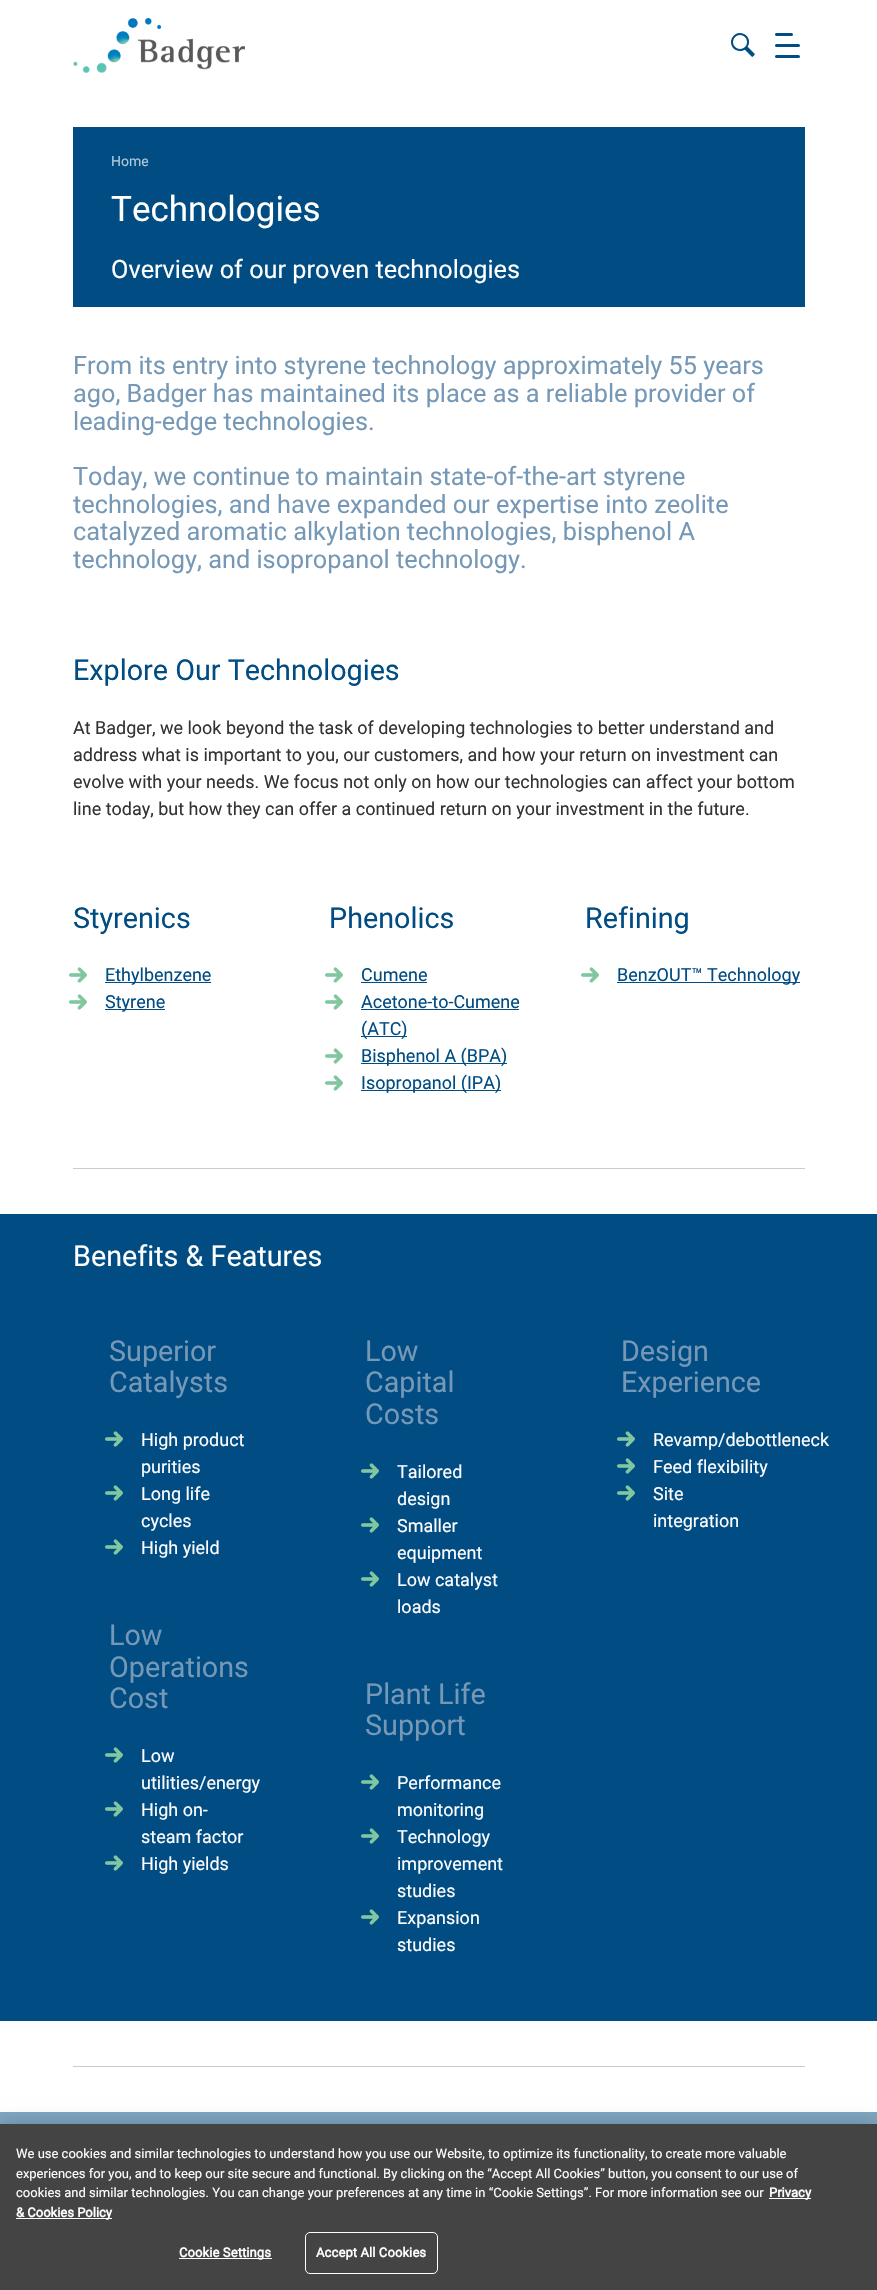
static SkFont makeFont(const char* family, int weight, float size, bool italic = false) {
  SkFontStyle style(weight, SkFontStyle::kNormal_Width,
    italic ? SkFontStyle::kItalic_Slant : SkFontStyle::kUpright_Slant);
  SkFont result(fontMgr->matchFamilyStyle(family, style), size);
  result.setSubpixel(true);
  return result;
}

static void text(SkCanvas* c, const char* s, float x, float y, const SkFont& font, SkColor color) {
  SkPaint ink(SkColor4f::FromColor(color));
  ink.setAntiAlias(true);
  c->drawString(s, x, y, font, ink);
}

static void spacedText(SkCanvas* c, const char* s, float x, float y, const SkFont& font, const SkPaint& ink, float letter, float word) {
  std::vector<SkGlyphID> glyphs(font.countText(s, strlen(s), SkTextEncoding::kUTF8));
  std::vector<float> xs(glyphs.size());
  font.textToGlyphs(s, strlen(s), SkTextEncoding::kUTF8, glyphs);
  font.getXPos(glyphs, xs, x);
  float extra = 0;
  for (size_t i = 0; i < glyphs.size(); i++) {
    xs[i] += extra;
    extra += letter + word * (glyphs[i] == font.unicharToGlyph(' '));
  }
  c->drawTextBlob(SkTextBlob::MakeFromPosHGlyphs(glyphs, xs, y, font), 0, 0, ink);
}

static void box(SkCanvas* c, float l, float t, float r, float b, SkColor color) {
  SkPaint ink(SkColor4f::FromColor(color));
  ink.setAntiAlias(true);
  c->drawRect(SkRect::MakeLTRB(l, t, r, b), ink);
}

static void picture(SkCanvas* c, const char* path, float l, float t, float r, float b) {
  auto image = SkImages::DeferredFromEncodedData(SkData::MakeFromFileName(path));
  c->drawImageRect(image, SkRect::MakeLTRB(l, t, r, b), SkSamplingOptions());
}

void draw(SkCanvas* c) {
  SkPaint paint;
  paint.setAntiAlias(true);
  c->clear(0xffffffff);
  picture(c, "img_01.png", 73, 18, 245, 73);
  picture(c, "img_02.png", 731, 33, 755, 57);
  picture(c, "img_03.png", 775, 33, 800, 58);
  box(c, 73, 127, 805, 307, 0xff004c83);
  SkFont face1 = makeFont("Roboto", 400, 14);
  text(c, "Home", 111, 166, face1, 0xffb3c9da);
  SkFont face2 = makeFont("Roboto", 400, 35);
  text(c, "Technologies", 111, 221, face2, 0xffffffff);
  SkFont face3 = makeFont("Roboto", 400, 25.3f);
  text(c, "Overview of our proven technologies", 111, 278, face3, 0xffffffff);
  text(c, "From its entry into styrene technology approximately 55 years", 73, 374, face3, 0xff7598b7);
  text(c, "ago, Badger has maintained its place as a reliable provider of", 73, 402, face3, 0xff7598b7);
  text(c, "leading-edge technologies.", 73, 430, face3, 0xff7598b7);
  text(c, "Today, we continue to maintain state-of-the-art styrene", 73, 485, face3, 0xff7598b7);
  text(c, "technologies, and have expanded our expertise into zeolite", 73, 513, face3, 0xff7598b7);
  text(c, "catalyzed aromatic alkylation technologies, bisphenol A", 73, 540, face3, 0xff7598b7);
  text(c, "technology, and isopropanol technology.", 73, 568, face3, 0xff7598b7);
  SkFont face4 = makeFont("Roboto", 400, 28.75f);
  text(c, "Explore Our Technologies", 73, 680, face4, 0xff004c83);
  SkFont face5 = makeFont("Roboto", 400, 18);
  text(c, "At Badger, we look beyond the task of developing technologies to better understand and", 73, 734, face5, 0xff333333);
  text(c, "address what is important to you, our customers, and how your return on investment can", 73, 761, face5, 0xff333333);
  text(c, "evolve with your needs. We focus not only on how our technologies can affect your bottom", 73, 788, face5, 0xff333333);
  text(c, "line today, but how they can offer a continued return on your investment in the future.", 73, 815, face5, 0xff333333);
  text(c, "Styrenics", 73, 928, face4, 0xff004c83);
  picture(c, "img_04.png", 69, 967, 87, 983);
  box(c, 105, 982, 211, 983, 0xff004c83);
  text(c, "Ethylbenzene", 105, 981, face5, 0xff004c83);
  picture(c, "img_04.png", 69, 994, 87, 1010);
  box(c, 105, 1009, 165, 1010, 0xff004c83);
  text(c, "Styrene", 105, 1008, face5, 0xff004c83);
  text(c, "Phenolics", 329, 928, face4, 0xff004c83);
  picture(c, "img_04.png", 325, 967, 343, 983);
  text(c, "Cumene", 361, 981, face5, 0xff004c83);
  box(c, 361, 982, 427, 983, 0xff004c83);
  picture(c, "img_04.png", 325, 994, 343, 1010);
  text(c, "Acetone-to-Cumene", 361, 1008, face5, 0xff004c83);
  box(c, 361, 1009, 519, 1010, 0xff004c83);
  box(c, 361, 1036, 407, 1037, 0xff004c83);
  text(c, "(ATC)", 361, 1035, face5, 0xff004c83);
  picture(c, "img_04.png", 325, 1048, 343, 1064);
  box(c, 361, 1063, 507, 1064, 0xff004c83);
  text(c, "Bisphenol A (BPA)", 361, 1062, face5, 0xff004c83);
  picture(c, "img_04.png", 325, 1075, 343, 1091);
  box(c, 361, 1090, 501, 1091, 0xff004c83);
  text(c, "Isopropanol (IPA)", 361, 1089, face5, 0xff004c83);
  text(c, "Refining", 585, 928, face4, 0xff004c83);
  picture(c, "img_04.png", 581, 967, 599, 983);
  box(c, 617, 982, 800, 983, 0xff004c83);
  text(c, "BenzOUT™ Technology", 617, 981, face5, 0xff004c83);
  box(c, 73, 1168, 805, 1169, 0xffcccccc);
  box(c, 0, 1214, 877, 2021, 0xff004c83);
  text(c, "Benefits & Features", 73, 1266, face4, 0xffffffff);
  text(c, "Superior", 109, 1361, face4, 0xff7598b7);
  text(c, "Catalysts", 109, 1392, face4, 0xff7598b7);
  picture(c, "img_05.png", 105, 1431, 123, 1447);
  text(c, "High product", 141, 1446, face5, 0xffffffff);
  text(c, "purities", 141, 1473, face5, 0xffffffff);
  picture(c, "img_05.png", 105, 1485, 123, 1501);
  text(c, "Long life", 141, 1500, face5, 0xffffffff);
  text(c, "cycles", 141, 1527, face5, 0xffffffff);
  picture(c, "img_05.png", 105, 1539, 123, 1555);
  text(c, "High yield", 141, 1554, face5, 0xffffffff);
  text(c, "Low", 109, 1645, face4, 0xff7598b7);
  text(c, "Operations", 109, 1677, face4, 0xff7598b7);
  text(c, "Cost", 109, 1708, face4, 0xff7598b7);
  picture(c, "img_05.png", 105, 1747, 123, 1763);
  text(c, "Low", 141, 1762, face5, 0xffffffff);
  text(c, "utilities/energy", 141, 1789, face5, 0xffffffff);
  picture(c, "img_05.png", 105, 1801, 123, 1817);
  text(c, "High on-", 141, 1816, face5, 0xffffffff);
  text(c, "steam factor", 141, 1843, face5, 0xffffffff);
  picture(c, "img_05.png", 105, 1855, 123, 1871);
  text(c, "High yields", 141, 1870, face5, 0xffffffff);
  text(c, "Low", 365, 1361, face4, 0xff7598b7);
  text(c, "Capital", 365, 1392, face4, 0xff7598b7);
  text(c, "Costs", 365, 1424, face4, 0xff7598b7);
  picture(c, "img_05.png", 361, 1463, 379, 1479);
  text(c, "Tailored", 397, 1478, face5, 0xffffffff);
  text(c, "design", 397, 1505, face5, 0xffffffff);
  picture(c, "img_05.png", 361, 1517, 379, 1533);
  text(c, "Smaller", 397, 1532, face5, 0xffffffff);
  text(c, "equipment", 397, 1559, face5, 0xffffffff);
  picture(c, "img_05.png", 361, 1571, 379, 1587);
  text(c, "Low catalyst", 397, 1586, face5, 0xffffffff);
  text(c, "loads", 397, 1613, face5, 0xffffffff);
  text(c, "Plant Life", 365, 1704, face4, 0xff7598b7);
  text(c, "Support", 365, 1735, face4, 0xff7598b7);
  picture(c, "img_05.png", 361, 1774, 379, 1790);
  text(c, "Performance", 397, 1789, face5, 0xffffffff);
  text(c, "monitoring", 397, 1816, face5, 0xffffffff);
  picture(c, "img_05.png", 361, 1828, 379, 1844);
  text(c, "Technology", 397, 1843, face5, 0xffffffff);
  text(c, "improvement", 397, 1870, face5, 0xffffffff);
  text(c, "studies", 397, 1897, face5, 0xffffffff);
  picture(c, "img_05.png", 361, 1909, 379, 1925);
  text(c, "Expansion", 397, 1924, face5, 0xffffffff);
  text(c, "studies", 397, 1951, face5, 0xffffffff);
  text(c, "Design", 621, 1361, face4, 0xff7598b7);
  text(c, "Experience", 621, 1392, face4, 0xff7598b7);
  picture(c, "img_05.png", 617, 1431, 635, 1447);
  text(c, "Revamp/debottleneck", 653, 1446, face5, 0xffffffff);
  picture(c, "img_05.png", 617, 1458, 635, 1474);
  text(c, "Feed flexibility", 653, 1473, face5, 0xffffffff);
  picture(c, "img_05.png", 617, 1485, 635, 1501);
  text(c, "Site", 653, 1500, face5, 0xffffffff);
  text(c, "integration", 653, 1527, face5, 0xffffffff);
  box(c, 73, 2066, 805, 2067, 0xffcccccc);
  box(c, 0, 2112, 877, 2124, 0xff80a6c1);
  paint.setColor(0x33000000);
  paint.setMaskFilter(SkMaskFilter::MakeBlur(kNormal_SkBlurStyle, 9));
  c->drawRect(SkRect::MakeLTRB(0, 2124, 877, 2290), paint);
  paint.setMaskFilter(nullptr);
  box(c, 0, 2124, 877, 2290, 0xff444444);
  SkFont face6 = makeFont("Roboto", 400, 13);
  text(c, "We use cookies and similar technologies to understand how you use our Website, to optimize its functionality, to create more valuable", 16, 2158, face6, 0xffffffff);
  text(c, "experiences for you, and to keep our site secure and functional. By clicking on the “Accept All Cookies” button, you consent to our use of", 16, 2178, face6, 0xffffffff);
  text(c, "cookies and similar technologies. You can change your preferences at any time in “Cookie Settings”. For more information see our", 16, 2197, face6, 0xffffffff);
  box(c, 769, 2198, 811, 2199, 0xffffffff);
  SkFont face7 = makeFont("Roboto", 700, 13);
  text(c, "Privacy", 769, 2197, face7, 0xffffffff);
  box(c, 16, 2218, 112, 2219, 0xffffffff);
  text(c, "& Cookies Policy", 16, 2217, face7, 0xffffffff);
  box(c, 179, 2258, 272, 2259, 0xffffffff);
  paint.setColor(0xffffffff);
  spacedText(c, "Cookie Settings", 179, 2257, face7, paint, 0.1f, 0);
  paint.setStyle(SkPaint::kStroke_Style);
  paint.setStrokeWidth(1);
  c->drawRoundRect(SkRect::MakeLTRB(305.5f, 2232.5f, 437.5f, 2273.5f), 4.5f, 4.5f, paint);
  paint.setStyle(SkPaint::kFill_Style);
  spacedText(c, "Accept All Cookies", 316, 2257, face7, paint, 0.1f, 0);
}
